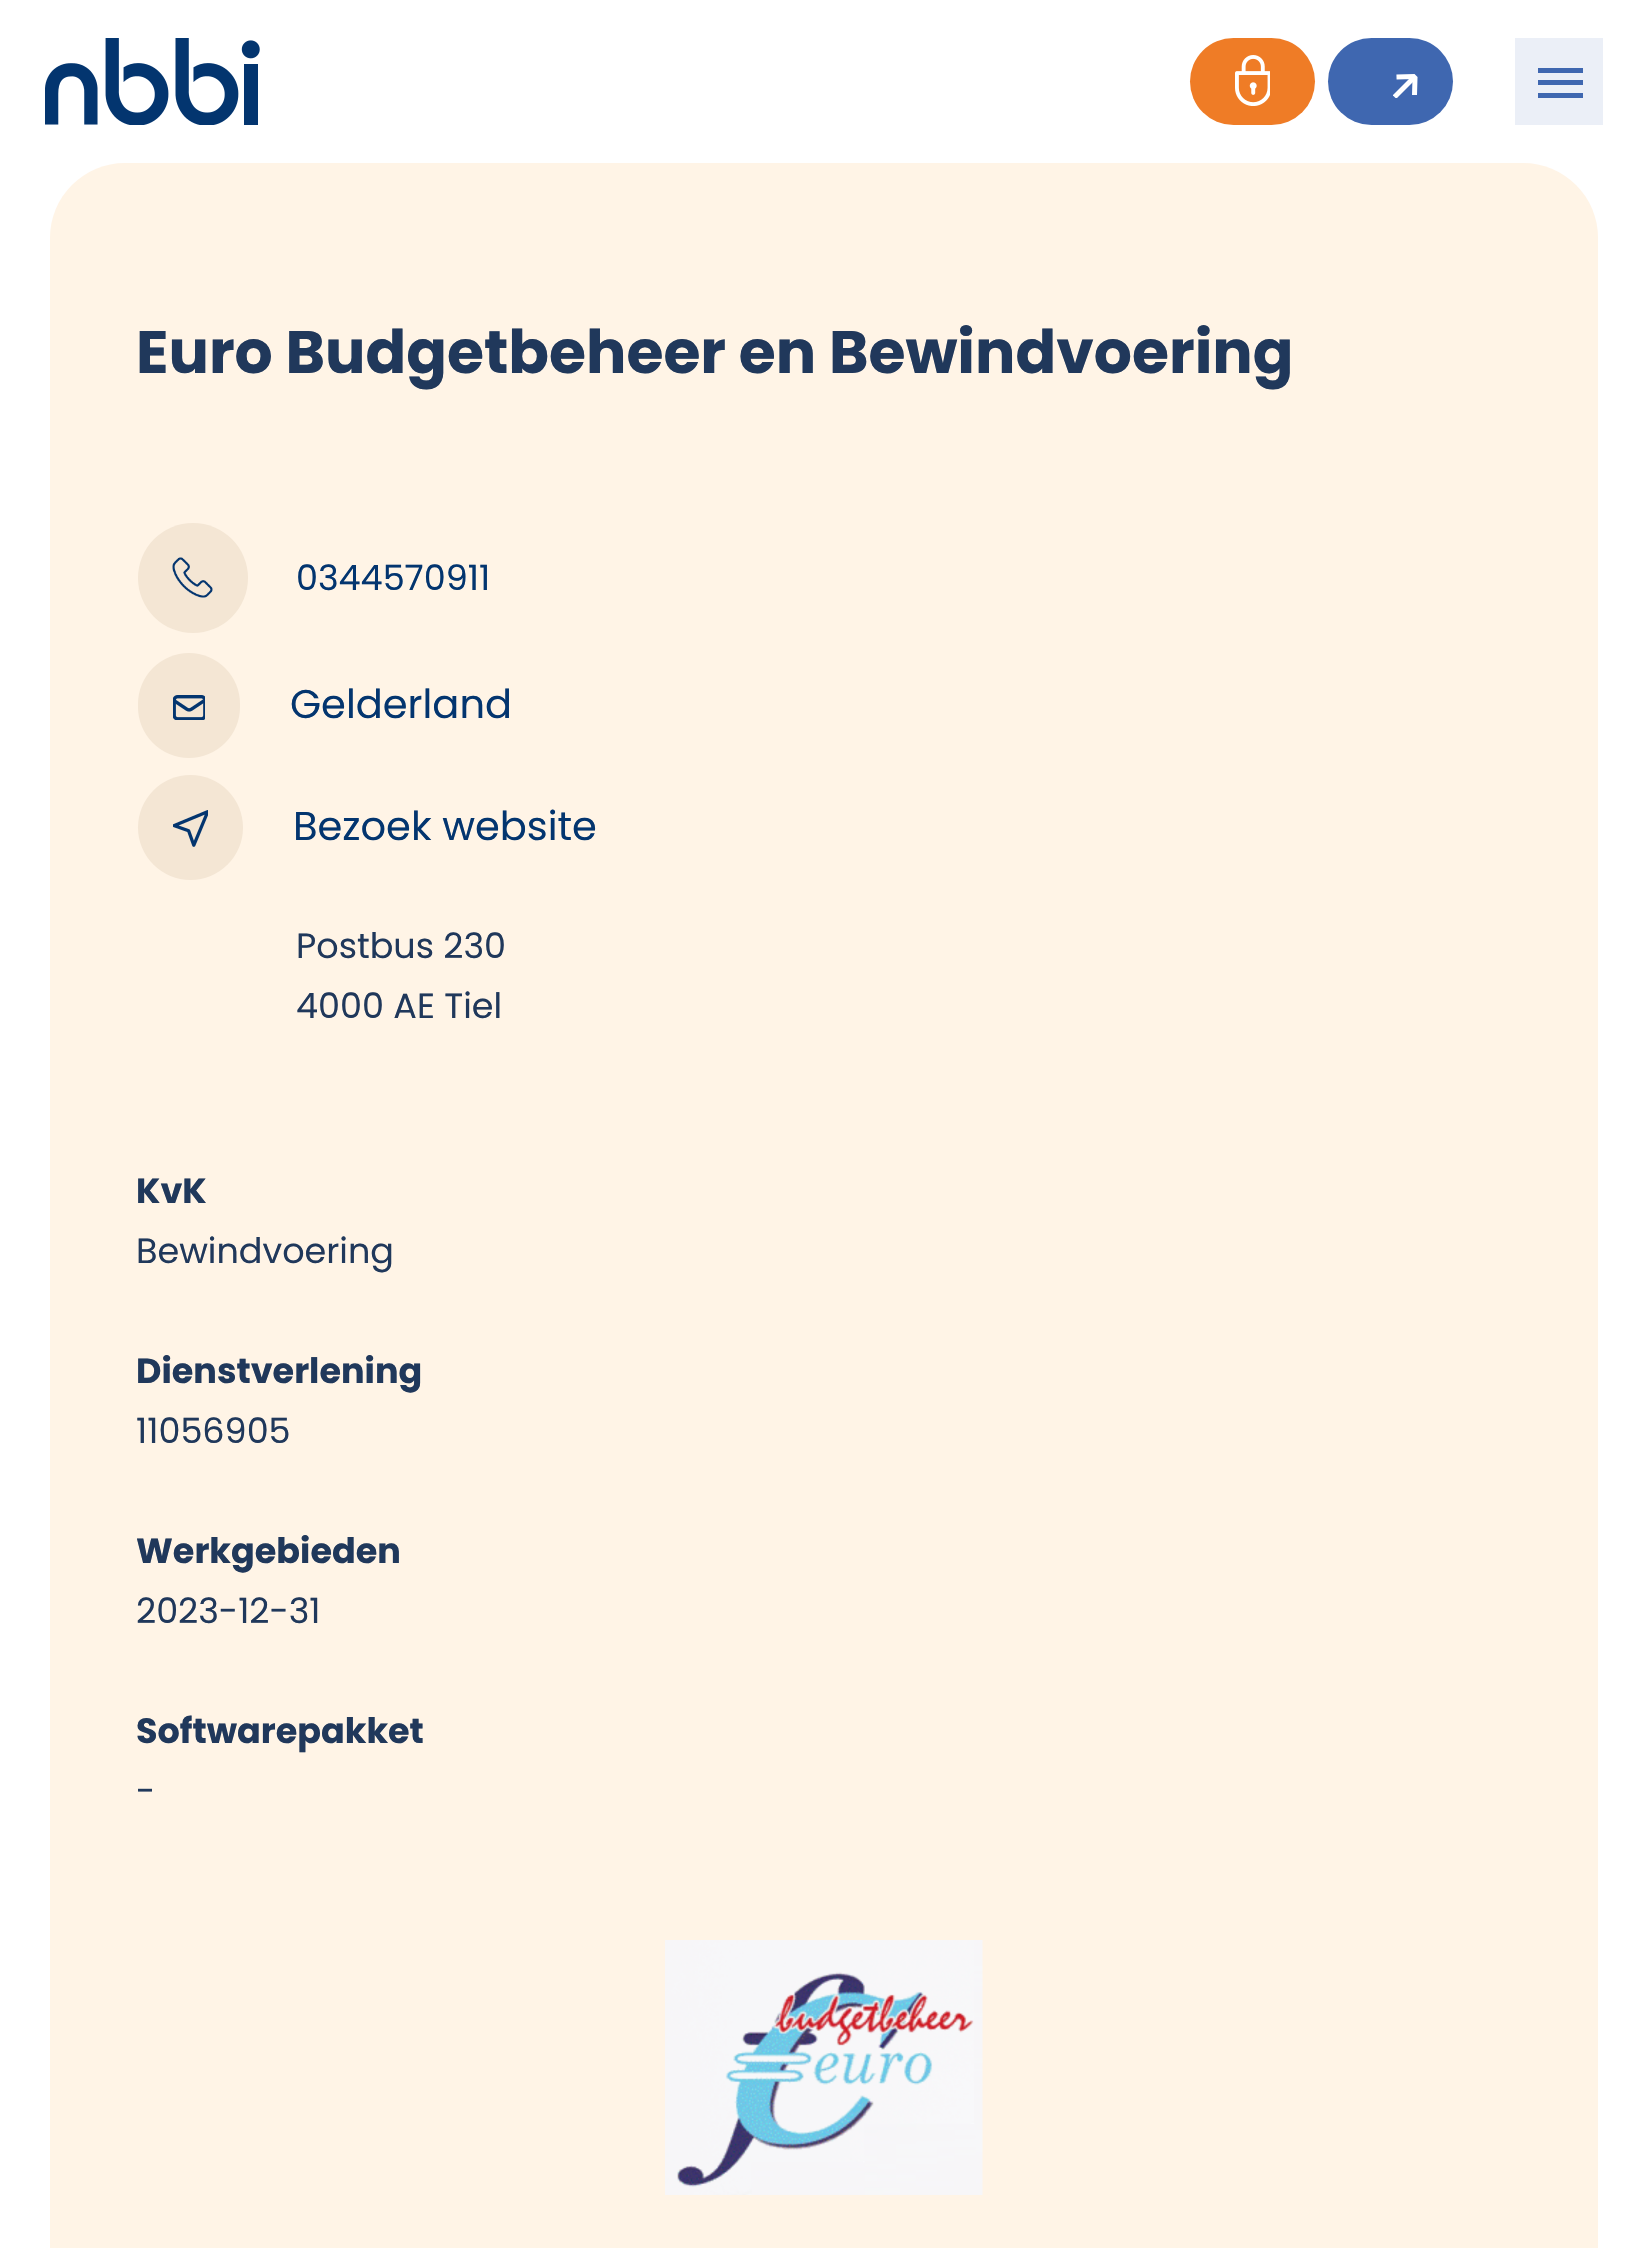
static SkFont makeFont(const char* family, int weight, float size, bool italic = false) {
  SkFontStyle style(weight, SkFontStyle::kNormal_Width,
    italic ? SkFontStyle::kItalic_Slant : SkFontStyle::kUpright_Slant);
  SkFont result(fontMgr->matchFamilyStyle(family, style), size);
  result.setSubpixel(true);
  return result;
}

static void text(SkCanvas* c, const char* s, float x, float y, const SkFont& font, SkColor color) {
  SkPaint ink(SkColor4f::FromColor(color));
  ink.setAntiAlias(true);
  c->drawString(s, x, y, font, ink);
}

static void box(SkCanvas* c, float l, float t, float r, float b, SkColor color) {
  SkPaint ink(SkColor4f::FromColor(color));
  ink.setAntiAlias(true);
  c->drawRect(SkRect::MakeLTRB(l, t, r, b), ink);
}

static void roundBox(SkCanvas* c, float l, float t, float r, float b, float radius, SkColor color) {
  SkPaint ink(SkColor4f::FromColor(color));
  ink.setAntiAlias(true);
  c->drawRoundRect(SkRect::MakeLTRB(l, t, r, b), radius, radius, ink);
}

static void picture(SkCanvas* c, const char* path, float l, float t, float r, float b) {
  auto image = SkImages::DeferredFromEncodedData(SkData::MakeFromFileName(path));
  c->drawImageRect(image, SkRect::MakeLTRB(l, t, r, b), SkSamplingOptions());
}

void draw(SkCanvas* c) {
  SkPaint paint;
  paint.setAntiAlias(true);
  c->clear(0xffffffff);
  picture(c, "img_01.png", 45, 38, 260, 125);
  roundBox(c, 1190, 38, 1315, 125, 43.5f, 0xffef7c26);
  picture(c, "img_02.png", 1235, 55, 1270, 106);
  roundBox(c, 1328, 38, 1453, 125, 43.5f, 0xff3f67b0);
  paint.setStyle(SkPaint::kStroke_Style);
  paint.setStrokeWidth(5);
  paint.setColor(0xffffffff);
  c->drawPath(SkPathBuilder().moveTo(1396.5f, 77).lineTo(1413.5f, 76.5f).lineTo(1415, 78).lineTo(1414.5f, 95).detach(), paint);
  c->save();
  c->clipRect(SkRect::MakeLTRB(1393, 65, 1428, 98));
  c->drawPath(SkPathBuilder().moveTo(1414, 77.5f).lineTo(1394.5f, 97).detach(), paint);
  c->restore();
  box(c, 1515, 38, 1603, 125, 0xffebeff7);
  box(c, 1538, 68, 1583, 73, 0xff3f67b0);
  box(c, 1538, 80, 1583, 85, 0xff3f67b0);
  box(c, 1538, 93, 1583, 98, 0xff3f67b0);
  roundBox(c, 50, 163, 1598, 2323, 75, 0xfffff4e6);
  SkFont face1 = makeFont("Poppins", 700, 60);
  text(c, "Euro Budgetbeheer en Bewindvoering", 136, 373, face1, 0xff20385b);
  paint.setStyle(SkPaint::kFill_Style);
  paint.setColor(0xfff4e6d4);
  c->drawCircle(193, 578, 55, paint);
  picture(c, "img_03.png", 172, 557, 213, 598);
  SkFont face2 = makeFont("Poppins", 400, 35);
  text(c, "0344570911", 296, 590, face2, 0xff03356f);
  roundBox(c, 138, 653, 240, 758, 51, 0xfff4e6d4);
  picture(c, "img_04.png", 173, 695, 205, 720);
  SkFont face3 = makeFont("Poppins", 400, 40);
  text(c, "Gelderland", 290, 718, face3, 0xff03356f);
  c->drawCircle(190.5f, 827.5f, 52.5f, paint);
  picture(c, "img_05.png", 173, 810, 208, 847);
  text(c, "Bezoek website", 293, 840, face3, 0xff03356f);
  text(c, "Postbus 230", 296, 958, face2, 0xff20385b);
  text(c, "4000 AE Tiel", 296, 1018, face2, 0xff20385b);
  SkFont face4 = makeFont("Poppins", 700, 35);
  text(c, "KvK", 136, 1203, face4, 0xff20385b);
  text(c, "Bewindvoering", 136, 1263, face2, 0xff20385b);
  text(c, "Dienstverlening", 136, 1383, face4, 0xff20385b);
  text(c, "11056905", 136, 1443, face2, 0xff20385b);
  text(c, "Werkgebieden", 136, 1563, face4, 0xff20385b);
  text(c, "2023-12-31", 136, 1623, face2, 0xff20385b);
  text(c, "Softwarepakket", 136, 1743, face4, 0xff20385b);
  text(c, "-", 136, 1803, face2, 0xff20385b);
  picture(c, "img_06.png", 665, 1940, 983, 2195);
}
